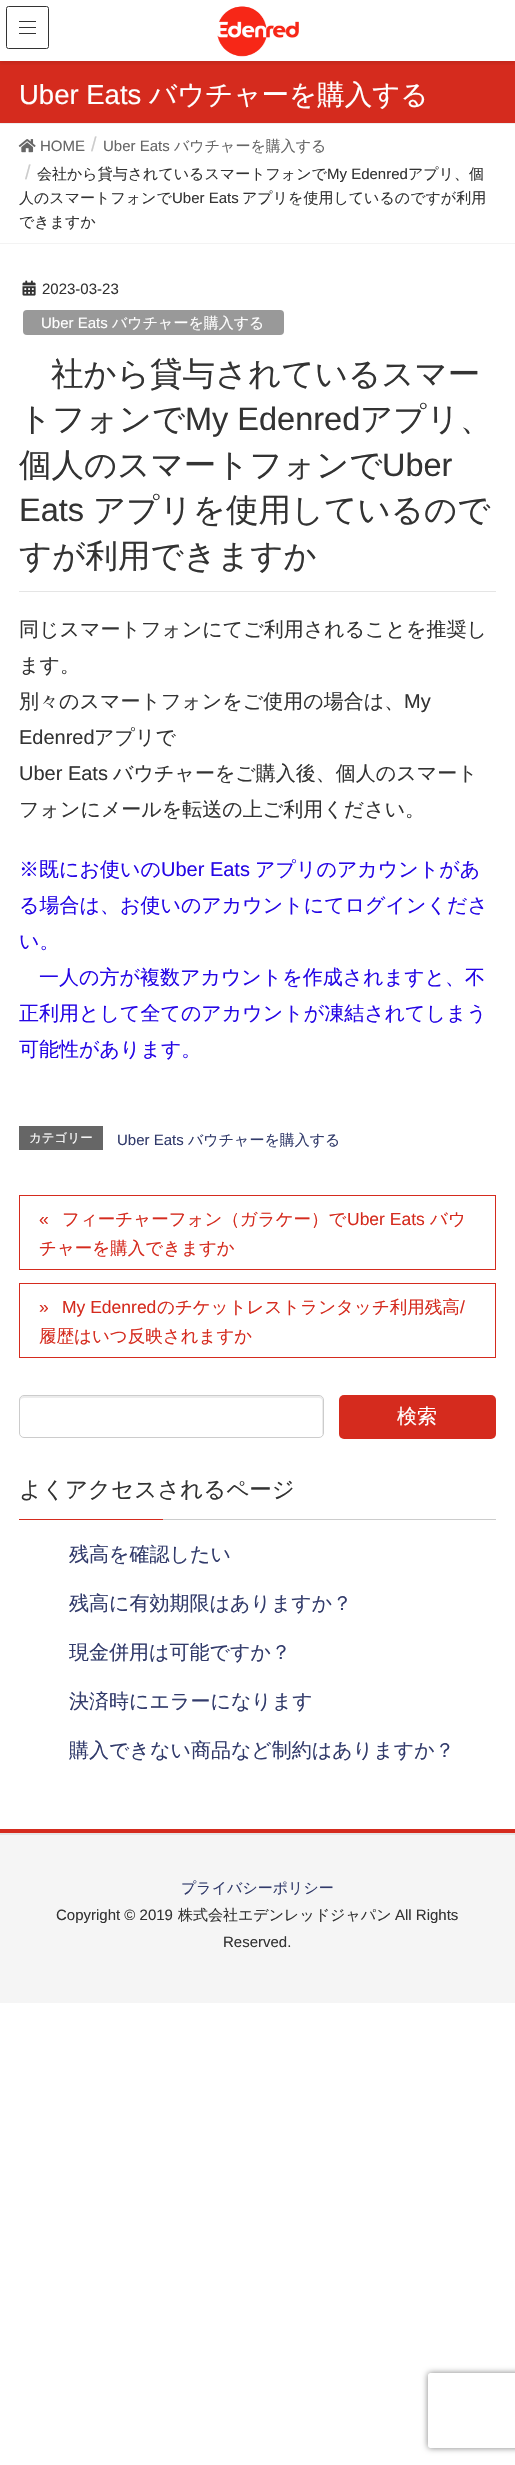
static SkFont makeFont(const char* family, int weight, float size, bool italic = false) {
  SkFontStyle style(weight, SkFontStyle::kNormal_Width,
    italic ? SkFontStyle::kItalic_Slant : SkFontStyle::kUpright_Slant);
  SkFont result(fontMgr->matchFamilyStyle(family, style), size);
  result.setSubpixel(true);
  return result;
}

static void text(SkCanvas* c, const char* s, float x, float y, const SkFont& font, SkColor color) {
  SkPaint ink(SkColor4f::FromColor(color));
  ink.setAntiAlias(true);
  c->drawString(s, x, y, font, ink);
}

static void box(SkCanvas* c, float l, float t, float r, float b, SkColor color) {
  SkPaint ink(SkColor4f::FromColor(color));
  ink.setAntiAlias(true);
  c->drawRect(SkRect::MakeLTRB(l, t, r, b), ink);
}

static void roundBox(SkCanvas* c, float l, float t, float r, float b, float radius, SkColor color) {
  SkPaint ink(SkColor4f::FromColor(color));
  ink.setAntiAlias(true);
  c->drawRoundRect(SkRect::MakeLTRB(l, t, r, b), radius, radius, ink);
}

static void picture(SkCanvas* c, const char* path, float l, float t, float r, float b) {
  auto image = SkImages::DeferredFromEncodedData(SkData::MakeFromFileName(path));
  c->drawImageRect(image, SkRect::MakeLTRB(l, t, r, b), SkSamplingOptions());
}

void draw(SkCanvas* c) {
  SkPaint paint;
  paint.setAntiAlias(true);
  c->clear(0xffffffff);
  box(c, 0, 61, 515, 123, 0xffd52b1e);
  c->save();
  c->clipRect(SkRect::MakeLTRB(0, 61, 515, 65));
  paint.setColor(0x1a000000);
  paint.setMaskFilter(SkMaskFilter::MakeBlur(kNormal_SkBlurStyle, 2));
  c->drawRect(SkRect::MakeLTRB(0, 1, 515, 63), paint);
  paint.setMaskFilter(nullptr);
  c->restore();
  picture(c, "img_01.png", 217, 6, 299, 57);
  box(c, 19, 21, 36, 22, 0xff333333);
  box(c, 19, 27, 36, 28, 0xff333333);
  box(c, 19, 33, 36, 34, 0xff333333);
  paint.setStyle(SkPaint::kStroke_Style);
  paint.setStrokeWidth(1);
  paint.setColor(0xff333333);
  c->drawRoundRect(SkRect::MakeLTRB(6.5f, 6.5f, 48.5f, 48.5f), 2, 2, paint);
  box(c, 0, 123, 515, 124, 0xffeeeeee);
  SkFont face1 = makeFont("Liberation Sans", 400, 27.5f);
  text(c, "Uber Eats", 19, 104, face1, 0xffffffff);
  SkFont face2 = makeFont("WenQuanYi Zen Hei", 500, 27.5f);
  text(c, "バウチャーを購入する", 149, 104, face2, 0xffffffff);
  box(c, 0, 243, 515, 244, 0xfff3f3f3);
  picture(c, "img_02.png", 18, 139, 36, 153);
  SkFont face3 = makeFont("Liberation Sans", 400, 15);
  text(c, "HOME", 40, 151, face3, 0xff666666);
  SkFont face4 = makeFont("Liberation Sans", 400, 20);
  text(c, "/", 91, 151, face4, 0xffcccccc);
  text(c, "Uber Eats", 103, 151, face3, 0xff666666);
  SkFont face5 = makeFont("WenQuanYi Zen Hei", 500, 15);
  text(c, "バウチャーを購入する", 174, 151, face5, 0xff666666);
  text(c, "/", 25, 179, face4, 0xffcccccc);
  text(c, "会社から貸与されているスマートフォンで", 37, 179, face5, 0xff333333);
  text(c, "My Edenred", 327, 179, face3, 0xff333333);
  text(c, "アプリ、個", 408, 179, face5, 0xff333333);
  text(c, "人のスマートフォンで", 19, 203, face5, 0xff333333);
  text(c, "Uber Eats", 172, 203, face3, 0xff333333);
  text(c, "アプリを使用しているのですが利用", 242, 203, face5, 0xff333333);
  text(c, "できますか", 19, 227, face5, 0xff333333);
  box(c, 19, 591, 496, 592, 0xffe5e5e5);
  picture(c, "img_03.png", 22, 280, 36, 296);
  text(c, "2023-03-23", 42, 294, face3, 0xff333333);
  roundBox(c, 23, 310, 284, 335, 4, 0xff999999);
  text(c, "Uber Eats", 41, 328, face3, 0xffffffff);
  text(c, "バウチャーを購入する", 112, 328, face5, 0xffffffff);
  SkFont face6 = makeFont("Noto Sans", 500, 32.5f);
  text(c, "会", 19, 385, face6, 0xffd52b1e);
  SkFont face7 = makeFont("WenQuanYi Zen Hei", 500, 32.5f);
  text(c, "社から貸与されているスマー", 51, 385, face7, 0xff333333);
  text(c, "トフォンで", 19, 430, face7, 0xff333333);
  SkFont face8 = makeFont("Liberation Sans", 400, 32.5f);
  text(c, "My Edenred", 185, 430, face8, 0xff333333);
  text(c, "アプリ、", 360, 430, face7, 0xff333333);
  text(c, "個人のスマートフォンで", 19, 476, face7, 0xff333333);
  text(c, "Uber", 382, 476, face8, 0xff333333);
  text(c, "Eats", 19, 521, face8, 0xff333333);
  text(c, "アプリを使用しているので", 93, 521, face7, 0xff333333);
  text(c, "すが利用できますか", 19, 567, face7, 0xff333333);
  SkFont face9 = makeFont("WenQuanYi Zen Hei", 500, 20);
  text(c, "同じスマートフォンにてご利用されることを推奨し", 19, 636, face9, 0xff333333);
  text(c, "ます。", 19, 672, face9, 0xff333333);
  text(c, "別々のスマートフォンをご使用の場合は、", 19, 708, face9, 0xff333333);
  text(c, "My", 404, 708, face4, 0xff333333);
  text(c, "Edenred", 19, 744, face4, 0xff333333);
  text(c, "アプリで", 94, 744, face9, 0xff333333);
  text(c, "Uber Eats", 19, 780, face4, 0xff333333);
  text(c, "バウチャーをご購入後、個人のスマート", 113, 780, face9, 0xff333333);
  text(c, "フォンにメールを転送の上ご利用ください。", 19, 816, face9, 0xff333333);
  text(c, "※既にお使いの", 19, 876, face9, 0xff2506e5);
  text(c, "Uber Eats", 161, 876, face4, 0xff2506e5);
  text(c, "アプリのアカウントがあ", 255, 876, face9, 0xff2506e5);
  text(c, "る場合は、お使いのアカウントにてログインくださ", 19, 912, face9, 0xff2506e5);
  text(c, "い。", 19, 948, face9, 0xff2506e5);
  text(c, "一人の方が複数アカウントを作成されますと、不", 39, 984, face9, 0xff2506e5);
  text(c, "正利用として全てのアカウントが凍結されてしまう", 19, 1020, face9, 0xff2506e5);
  text(c, "可能性があります。", 19, 1056, face9, 0xff2506e5);
  box(c, 19, 1126, 103, 1150, 0xff666666);
  SkFont face10 = makeFont("WenQuanYi Zen Hei", 500, 12.5f);
  text(c, "カテゴリー", 29, 1142, face10, 0xffffffff);
  text(c, "Uber Eats", 117, 1145, face3, 0xff323b6b);
  text(c, "バウチャーを購入する", 188, 1145, face5, 0xff323b6b);
  paint.setColor(0xffd52b1e);
  c->drawRect(SkRect::MakeLTRB(19.5f, 1195.5f, 495.5f, 1269.5f), paint);
  SkFont face11 = makeFont("Liberation Sans", 400, 17.5f);
  text(c, "«", 39, 1225, face11, 0xffd52b1e);
  SkFont face12 = makeFont("WenQuanYi Zen Hei", 500, 17.5f);
  text(c, "フィーチャーフォン（ガラケー）で", 62, 1225, face12, 0xffd52b1e);
  text(c, "Uber Eats", 347, 1225, face11, 0xffd52b1e);
  text(c, "バウ", 430, 1225, face12, 0xffd52b1e);
  text(c, "チャーを購入できますか", 39, 1254, face12, 0xffd52b1e);
  c->drawRect(SkRect::MakeLTRB(19.5f, 1283.5f, 495.5f, 1357.5f), paint);
  text(c, "»", 39, 1313, face11, 0xffd52b1e);
  text(c, "My Edenred", 62, 1313, face11, 0xffd52b1e);
  text(c, "のチケットレストランタッチ利用残高", 157, 1313, face12, 0xffd52b1e);
  text(c, "/", 460, 1313, face11, 0xffd52b1e);
  text(c, "履歴はいつ反映されますか", 39, 1342, face12, 0xffd52b1e);
  paint.setStyle(SkPaint::kFill_Style);
  paint.setColor(0xffececec);
  c->drawPath(SkPathBuilder().moveTo(24, 1398).lineTo(319, 1398).cubicTo(321, 1398, 322, 1399, 322, 1401).lineTo(322, 1435).cubicTo(323, 1434, 323, 1433, 323, 1432).lineTo(323, 1400).cubicTo(323, 1398, 321, 1396, 319, 1396).lineTo(24, 1396).cubicTo(22, 1396, 20, 1398, 20, 1400).lineTo(20, 1401).cubicTo(20, 1399, 22, 1398, 24, 1398).close().detach(), paint);
  paint.setStyle(SkPaint::kStroke_Style);
  paint.setColor(0xffcccccc);
  c->drawRoundRect(SkRect::MakeLTRB(19.5f, 1395.5f, 323.5f, 1437.5f), 4.5f, 4.5f, paint);
  roundBox(c, 339, 1395, 496, 1439, 5, 0xffd52b1e);
  text(c, "検索", 397, 1423, face9, 0xffffffff);
  box(c, 163, 1519, 496, 1520, 0xffcccccc);
  SkFont face13 = makeFont("WenQuanYi Zen Hei", 500, 22.5f);
  text(c, "よくアクセスされるページ", 19, 1497, face13, 0xff333333);
  box(c, 19, 1519, 163, 1520, 0xffd52b1e);
  text(c, "残高を確認したい", 69, 1561, face9, 0xff323b6b);
  text(c, "残高に有効期限はありますか？", 69, 1610, face9, 0xff323b6b);
  text(c, "現金併用は可能ですか？", 69, 1659, face9, 0xff323b6b);
  text(c, "決済時にエラーになります", 69, 1708, face9, 0xff323b6b);
  text(c, "購入できない商品など制約はありますか？", 69, 1757, face9, 0xff323b6b);
  box(c, 0, 1835, 515, 2003, 0xfff5f5f5);
  box(c, 0, 1829, 515, 1833, 0xffd52b1e);
  box(c, 0, 1833, 515, 1835, 0xffe5e5e5);
  text(c, "プライバシーポリシー", 181, 1893, face5, 0xff323b6b);
  text(c, "Copyright © 2019", 56, 1920, face3, 0xff333333);
  text(c, "株式会社エデンレッドジャパン", 178, 1920, face5, 0xff333333);
  text(c, "All Rights", 395, 1920, face3, 0xff333333);
  text(c, "Reserved.", 223, 1947, face3, 0xff333333);
  c->save();
  c->clipPath(SkPathBuilder(SkPathFillType::kEvenOdd).moveTo(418, 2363).lineTo(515, 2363).lineTo(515, 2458).lineTo(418, 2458).close().moveTo(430.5f, 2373).lineTo(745.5f, 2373).cubicTo(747, 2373, 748, 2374, 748, 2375.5f).lineTo(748, 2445.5f).cubicTo(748, 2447, 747, 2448, 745.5f, 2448).lineTo(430.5f, 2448).cubicTo(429, 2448, 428, 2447, 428, 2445.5f).lineTo(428, 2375.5f).cubicTo(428, 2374, 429, 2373, 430.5f, 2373).close().detach(), true);
  paint.setStyle(SkPaint::kFill_Style);
  paint.setColor(0xff808080);
  paint.setMaskFilter(SkMaskFilter::MakeBlur(kNormal_SkBlurStyle, 3));
  c->drawRoundRect(SkRect::MakeLTRB(428, 2373, 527, 2448), 2.5f, 2.5f, paint);
  paint.setMaskFilter(nullptr);
  c->restore();
}
